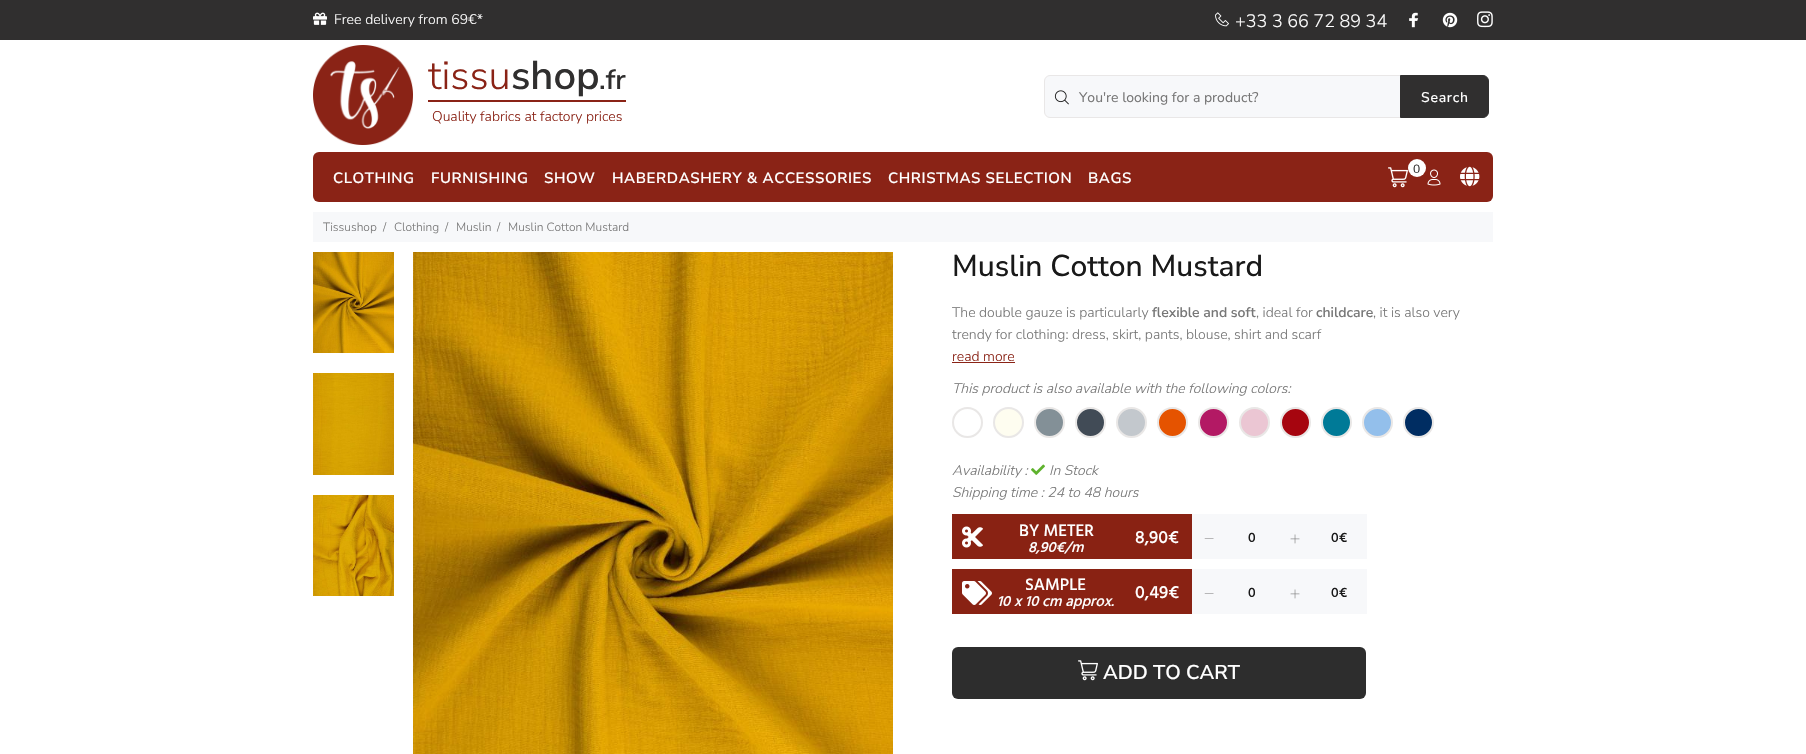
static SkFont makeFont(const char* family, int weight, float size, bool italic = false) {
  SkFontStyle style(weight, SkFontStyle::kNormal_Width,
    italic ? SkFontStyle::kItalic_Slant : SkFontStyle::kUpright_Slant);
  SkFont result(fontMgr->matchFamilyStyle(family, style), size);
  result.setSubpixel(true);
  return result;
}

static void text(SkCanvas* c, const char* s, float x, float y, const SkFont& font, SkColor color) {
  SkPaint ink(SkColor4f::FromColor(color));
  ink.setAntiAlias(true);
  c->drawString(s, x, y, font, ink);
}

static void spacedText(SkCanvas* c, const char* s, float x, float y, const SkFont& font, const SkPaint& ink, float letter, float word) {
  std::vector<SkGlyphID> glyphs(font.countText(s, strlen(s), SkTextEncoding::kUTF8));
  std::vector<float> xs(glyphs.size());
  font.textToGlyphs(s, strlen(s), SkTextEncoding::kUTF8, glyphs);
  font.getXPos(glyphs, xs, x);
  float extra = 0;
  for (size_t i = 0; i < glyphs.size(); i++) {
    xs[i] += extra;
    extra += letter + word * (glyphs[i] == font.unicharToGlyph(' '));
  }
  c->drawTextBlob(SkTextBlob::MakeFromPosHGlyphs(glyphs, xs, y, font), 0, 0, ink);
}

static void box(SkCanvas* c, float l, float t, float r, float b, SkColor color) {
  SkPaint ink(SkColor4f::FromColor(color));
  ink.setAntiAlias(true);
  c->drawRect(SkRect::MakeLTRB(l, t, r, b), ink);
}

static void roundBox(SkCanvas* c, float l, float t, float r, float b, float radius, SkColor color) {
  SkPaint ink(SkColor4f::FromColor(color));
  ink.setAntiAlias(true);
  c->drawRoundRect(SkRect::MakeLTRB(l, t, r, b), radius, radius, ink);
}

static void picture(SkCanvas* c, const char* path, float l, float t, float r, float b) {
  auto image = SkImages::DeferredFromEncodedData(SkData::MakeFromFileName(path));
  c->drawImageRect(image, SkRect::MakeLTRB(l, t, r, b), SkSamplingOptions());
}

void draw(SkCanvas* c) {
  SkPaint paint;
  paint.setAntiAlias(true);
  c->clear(0xffffffff);
  box(c, 0, 0, 1806, 40, 0xff302f2f);
  picture(c, "img_01.png", 313, 12, 327, 25);
  SkFont face1 = makeFont("Nunito Sans", 300, 14);
  paint.setColor(0xffffffff);
  spacedText(c, "Free delivery from 69€*", 334, 24, face1, paint, 0.1f, 0);
  picture(c, "img_02.png", 1215, 12, 1229, 27);
  SkFont face2 = makeFont("Nunito Sans", 300, 18);
  text(c, "+33 3 66 72 89 34", 1235, 27, face2, 0xffffffff);
  picture(c, "img_03.png", 1409, 12, 1419, 28);
  picture(c, "img_04.png", 1442, 12, 1458, 28);
  picture(c, "img_05.png", 1477, 11, 1493, 28);
  picture(c, "img_06.png", 313, 45, 413, 145);
  SkFont face3 = makeFont("Nunito Sans", 300, 40);
  text(c, "tissu", 428, 89, face3, 0xff8a2316);
  SkFont face4 = makeFont("Nunito Sans", 600, 40);
  text(c, "shop", 511, 89, face4, 0xff302f2f);
  SkFont face5 = makeFont("Nunito Sans", 600, 28);
  text(c, ".fr", 599, 89, face5, 0xff302f2f);
  box(c, 428, 100, 626, 102, 0xff8a2316);
  text(c, "Quality fabrics at factory prices", 432, 121, face1, 0xff8a2316);
  paint.setColor(0xfff7f8fa);
  c->drawPath(SkPathBuilder().moveTo(1050, 75.5f).lineTo(1403.5f, 75.5f).lineTo(1403.5f, 117.5f).lineTo(1050, 117.5f).cubicTo(1047, 117.5f, 1044.5f, 115, 1044.5f, 112).lineTo(1044.5f, 81).cubicTo(1044.5f, 78, 1047, 75.5f, 1050, 75.5f).close().detach(), paint);
  paint.setStyle(SkPaint::kStroke_Style);
  paint.setStrokeWidth(1);
  paint.setColor(0xffe9e7e7);
  c->drawPath(SkPathBuilder().moveTo(1050, 75.5f).lineTo(1403.5f, 75.5f).lineTo(1403.5f, 117.5f).lineTo(1050, 117.5f).cubicTo(1047, 117.5f, 1044.5f, 115, 1044.5f, 112).lineTo(1044.5f, 81).cubicTo(1044.5f, 78, 1047, 75.5f, 1050, 75.5f).close().detach(), paint);
  picture(c, "img_07.png", 1054, 90, 1069, 105);
  SkFont face6 = makeFont("Nunito Sans", 400, 14);
  text(c, "You're looking for a product?", 1079, 102, face6, 0xff777777);
  paint.setStyle(SkPaint::kFill_Style);
  paint.setColor(0xff302f2f);
  c->drawPath(SkPathBuilder().moveTo(1400.5f, 75.5f).lineTo(1483, 75.5f).cubicTo(1486, 75.5f, 1488.5f, 78, 1488.5f, 81).lineTo(1488.5f, 112).cubicTo(1488.5f, 115, 1486, 117.5f, 1483, 117.5f).lineTo(1400.5f, 117.5f).close().detach(), paint);
  paint.setStyle(SkPaint::kStroke_Style);
  c->drawPath(SkPathBuilder().moveTo(1400.5f, 75.5f).lineTo(1483, 75.5f).cubicTo(1486, 75.5f, 1488.5f, 78, 1488.5f, 81).lineTo(1488.5f, 112).cubicTo(1488.5f, 115, 1486, 117.5f, 1483, 117.5f).lineTo(1400.5f, 117.5f).close().detach(), paint);
  SkFont face7 = makeFont("Nunito Sans", 500, 14);
  paint.setStyle(SkPaint::kFill_Style);
  paint.setColor(0xffffffff);
  spacedText(c, "Search", 1421, 102, face7, paint, 0.75f, 0);
  roundBox(c, 313, 152, 1493, 202, 6, 0xff8a2316);
  picture(c, "img_08.png", 1388, 167, 1408, 188);
  c->drawCircle(1417, 168, 9, paint);
  SkFont face8 = makeFont("Nunito Sans", 400, 12);
  text(c, "0", 1413, 173, face8, 0xff302f2f);
  picture(c, "img_09.png", 1427, 169, 1441, 186);
  picture(c, "img_10.png", 1460, 166, 1480, 187);
  SkFont face9 = makeFont("Nunito Sans", 600, 15);
  spacedText(c, "CLOTHING", 333, 183, face9, paint, 0.6f, 0);
  spacedText(c, "FURNISHING", 431, 183, face9, paint, 0.6f, 0);
  spacedText(c, "SHOW", 544, 183, face9, paint, 0.6f, 0);
  spacedText(c, "HABERDASHERY & ACCESSORIES", 612, 183, face9, paint, 0.6f, 0);
  spacedText(c, "CHRISTMAS SELECTION", 888, 183, face9, paint, 0.6f, 0);
  spacedText(c, "BAGS", 1088, 183, face9, paint, 0.6f, 0);
  box(c, 313, 212, 1493, 242, 0xfff7f8fa);
  SkFont face10 = makeFont("Nunito Sans", 300, 12);
  text(c, "Tissushop", 323, 231, face10, 0xff777777);
  text(c, "/", 383, 231, face10, 0xff777777);
  text(c, "Clothing", 394, 231, face10, 0xff777777);
  text(c, "/", 445, 231, face10, 0xff777777);
  text(c, "Muslin", 456, 231, face10, 0xff777777);
  text(c, "/", 497, 231, face10, 0xff777777);
  text(c, "Muslin Cotton Mustard", 508, 231, face10, 0xff777777);
  picture(c, "img_11.png", 313, 252, 394, 353);
  picture(c, "img_12.png", 313, 373, 394, 475);
  picture(c, "img_13.png", 313, 495, 394, 596);
  picture(c, "img_14.png", 413, 252, 893, 754);
  SkFont face11 = makeFont("Nunito Sans", 500, 30);
  text(c, "Muslin Cotton Mustard", 952, 276, face11, 0xff191919);
  text(c, "The double gauze is particularly", 952, 317, face1, 0xff777777);
  SkFont face12 = makeFont("Nunito Sans", 600, 14);
  text(c, "flexible and soft", 1152, 317, face12, 0xff777777);
  text(c, ", ideal for", 1256, 317, face1, 0xff777777);
  text(c, "childcare", 1316, 317, face12, 0xff777777);
  text(c, ", it is also very", 1373, 317, face1, 0xff777777);
  text(c, "trendy for clothing: dress, skirt, pants, blouse, shirt and scarf", 952, 339, face1, 0xff777777);
  text(c, "read more", 952, 361, face1, 0xff8a2316);
  box(c, 952, 362, 1015, 363, 0xff8a2316);
  SkFont face13 = makeFont("Nunito Sans", 300, 14, true);
  text(c, "This product is also available with the following colors:", 952, 393, face13, 0xff777777);
  paint.setStyle(SkPaint::kStroke_Style);
  paint.setStrokeWidth(2);
  paint.setColor(0xffe9e7e6);
  c->drawCircle(967.5f, 422.5f, 14.5f, paint);
  paint.setStyle(SkPaint::kFill_Style);
  paint.setColor(0xfffefdf0);
  c->drawCircle(1008.5f, 422.5f, 14.5f, paint);
  paint.setStyle(SkPaint::kStroke_Style);
  paint.setColor(0xffe9e7e6);
  c->drawCircle(1008.5f, 422.5f, 14.5f, paint);
  paint.setStyle(SkPaint::kFill_Style);
  paint.setColor(0xff839097);
  c->drawCircle(1049.5f, 422.5f, 14.5f, paint);
  paint.setStyle(SkPaint::kStroke_Style);
  paint.setColor(0xffe9e7e6);
  c->drawCircle(1049.5f, 422.5f, 14.5f, paint);
  paint.setStyle(SkPaint::kFill_Style);
  paint.setColor(0xff414b56);
  c->drawCircle(1090.5f, 422.5f, 14.5f, paint);
  paint.setStyle(SkPaint::kStroke_Style);
  paint.setColor(0xffe9e7e6);
  c->drawCircle(1090.5f, 422.5f, 14.5f, paint);
  paint.setStyle(SkPaint::kFill_Style);
  paint.setColor(0xffc3c8cd);
  c->drawCircle(1131.5f, 422.5f, 14.5f, paint);
  paint.setStyle(SkPaint::kStroke_Style);
  paint.setColor(0xffe9e7e6);
  c->drawCircle(1131.5f, 422.5f, 14.5f, paint);
  paint.setStyle(SkPaint::kFill_Style);
  paint.setColor(0xffe55300);
  c->drawCircle(1172.5f, 422.5f, 14.5f, paint);
  paint.setStyle(SkPaint::kStroke_Style);
  paint.setColor(0xffe9e7e6);
  c->drawCircle(1172.5f, 422.5f, 14.5f, paint);
  paint.setStyle(SkPaint::kFill_Style);
  paint.setColor(0xffb31964);
  c->drawCircle(1213.5f, 422.5f, 14.5f, paint);
  paint.setStyle(SkPaint::kStroke_Style);
  paint.setColor(0xffe9e7e6);
  c->drawCircle(1213.5f, 422.5f, 14.5f, paint);
  paint.setStyle(SkPaint::kFill_Style);
  paint.setColor(0xffebc6d3);
  c->drawCircle(1254.5f, 422.5f, 14.5f, paint);
  paint.setStyle(SkPaint::kStroke_Style);
  paint.setColor(0xffe9e7e6);
  c->drawCircle(1254.5f, 422.5f, 14.5f, paint);
  paint.setStyle(SkPaint::kFill_Style);
  paint.setColor(0xffa6050f);
  c->drawCircle(1295.5f, 422.5f, 14.5f, paint);
  paint.setStyle(SkPaint::kStroke_Style);
  paint.setColor(0xffe9e7e6);
  c->drawCircle(1295.5f, 422.5f, 14.5f, paint);
  paint.setStyle(SkPaint::kFill_Style);
  paint.setColor(0xff007a97);
  c->drawCircle(1336.5f, 422.5f, 14.5f, paint);
  paint.setStyle(SkPaint::kStroke_Style);
  paint.setColor(0xffe9e7e6);
  c->drawCircle(1336.5f, 422.5f, 14.5f, paint);
  paint.setStyle(SkPaint::kFill_Style);
  paint.setColor(0xff93bfeb);
  c->drawCircle(1377.5f, 422.5f, 14.5f, paint);
  paint.setStyle(SkPaint::kStroke_Style);
  paint.setColor(0xffe9e7e6);
  c->drawCircle(1377.5f, 422.5f, 14.5f, paint);
  paint.setStyle(SkPaint::kFill_Style);
  paint.setColor(0xff002d62);
  c->drawCircle(1418.5f, 422.5f, 14.5f, paint);
  paint.setStyle(SkPaint::kStroke_Style);
  paint.setColor(0xffe9e7e6);
  c->drawCircle(1418.5f, 422.5f, 14.5f, paint);
  text(c, "Availability :", 952, 475, face13, 0xff777777);
  picture(c, "img_15.png", 1031, 464, 1045, 475);
  text(c, "In Stock", 1049, 475, face13, 0xff777777);
  text(c, "Shipping time : 24 to 48 hours", 952, 497, face13, 0xff777777);
  box(c, 952, 514, 1192, 559, 0xff892213);
  picture(c, "img_16.png", 962, 526, 983, 548);
  SkFont face14 = makeFont("Hind", 500, 17);
  text(c, "BY METER", 1019, 536, face14, 0xffffffff);
  SkFont face15 = makeFont("Hind", 500, 15, true);
  text(c, "8,90€/m", 1028, 552, face15, 0xffffffff);
  SkFont face16 = makeFont("Hind", 500, 18);
  text(c, "8,90€", 1135, 543, face16, 0xffffffff);
  box(c, 1192, 514, 1367, 559, 0xfff7f8fa);
  paint.setStyle(SkPaint::kFill_Style);
  paint.setColor(0xff777777);
  c->drawPath(SkPathBuilder().moveTo(1213.5f, 538.5f).lineTo(1213.5f, 539).lineTo(1204.5f, 539).lineTo(1205, 538.5f).close().detach(), paint);
  SkFont face17 = makeFont("Hind", 500, 14);
  text(c, "0", 1248, 542, face17, 0xff191919);
  picture(c, "img_17.png", 1290, 534, 1300, 544);
  text(c, "0€", 1331, 542, face17, 0xff191919);
  box(c, 952, 569, 1192, 614, 0xff892213);
  picture(c, "img_18.png", 962, 581, 992, 605);
  text(c, "SAMPLE", 1025, 590, face14, 0xffffffff);
  text(c, "10 x 10 cm approx.", 997, 606, face15, 0xffffffff);
  text(c, "0,49€", 1135, 598, face16, 0xffffffff);
  box(c, 1192, 569, 1367, 614, 0xfff7f8fa);
  c->drawPath(SkPathBuilder().moveTo(1213.5f, 593.5f).lineTo(1213.5f, 594).lineTo(1204.5f, 594).lineTo(1205, 593.5f).close().detach(), paint);
  text(c, "0", 1248, 597, face17, 0xff191919);
  picture(c, "img_17.png", 1290, 589, 1300, 599);
  text(c, "0€", 1331, 597, face17, 0xff191919);
  roundBox(c, 952, 647, 1366, 699, 6, 0xff2d2d2d);
  picture(c, "img_19.png", 1078, 660, 1098, 681);
  SkFont face18 = makeFont("Nunito Sans", 600, 20);
  text(c, "ADD TO CART", 1103, 679, face18, 0xffffffff);
}
